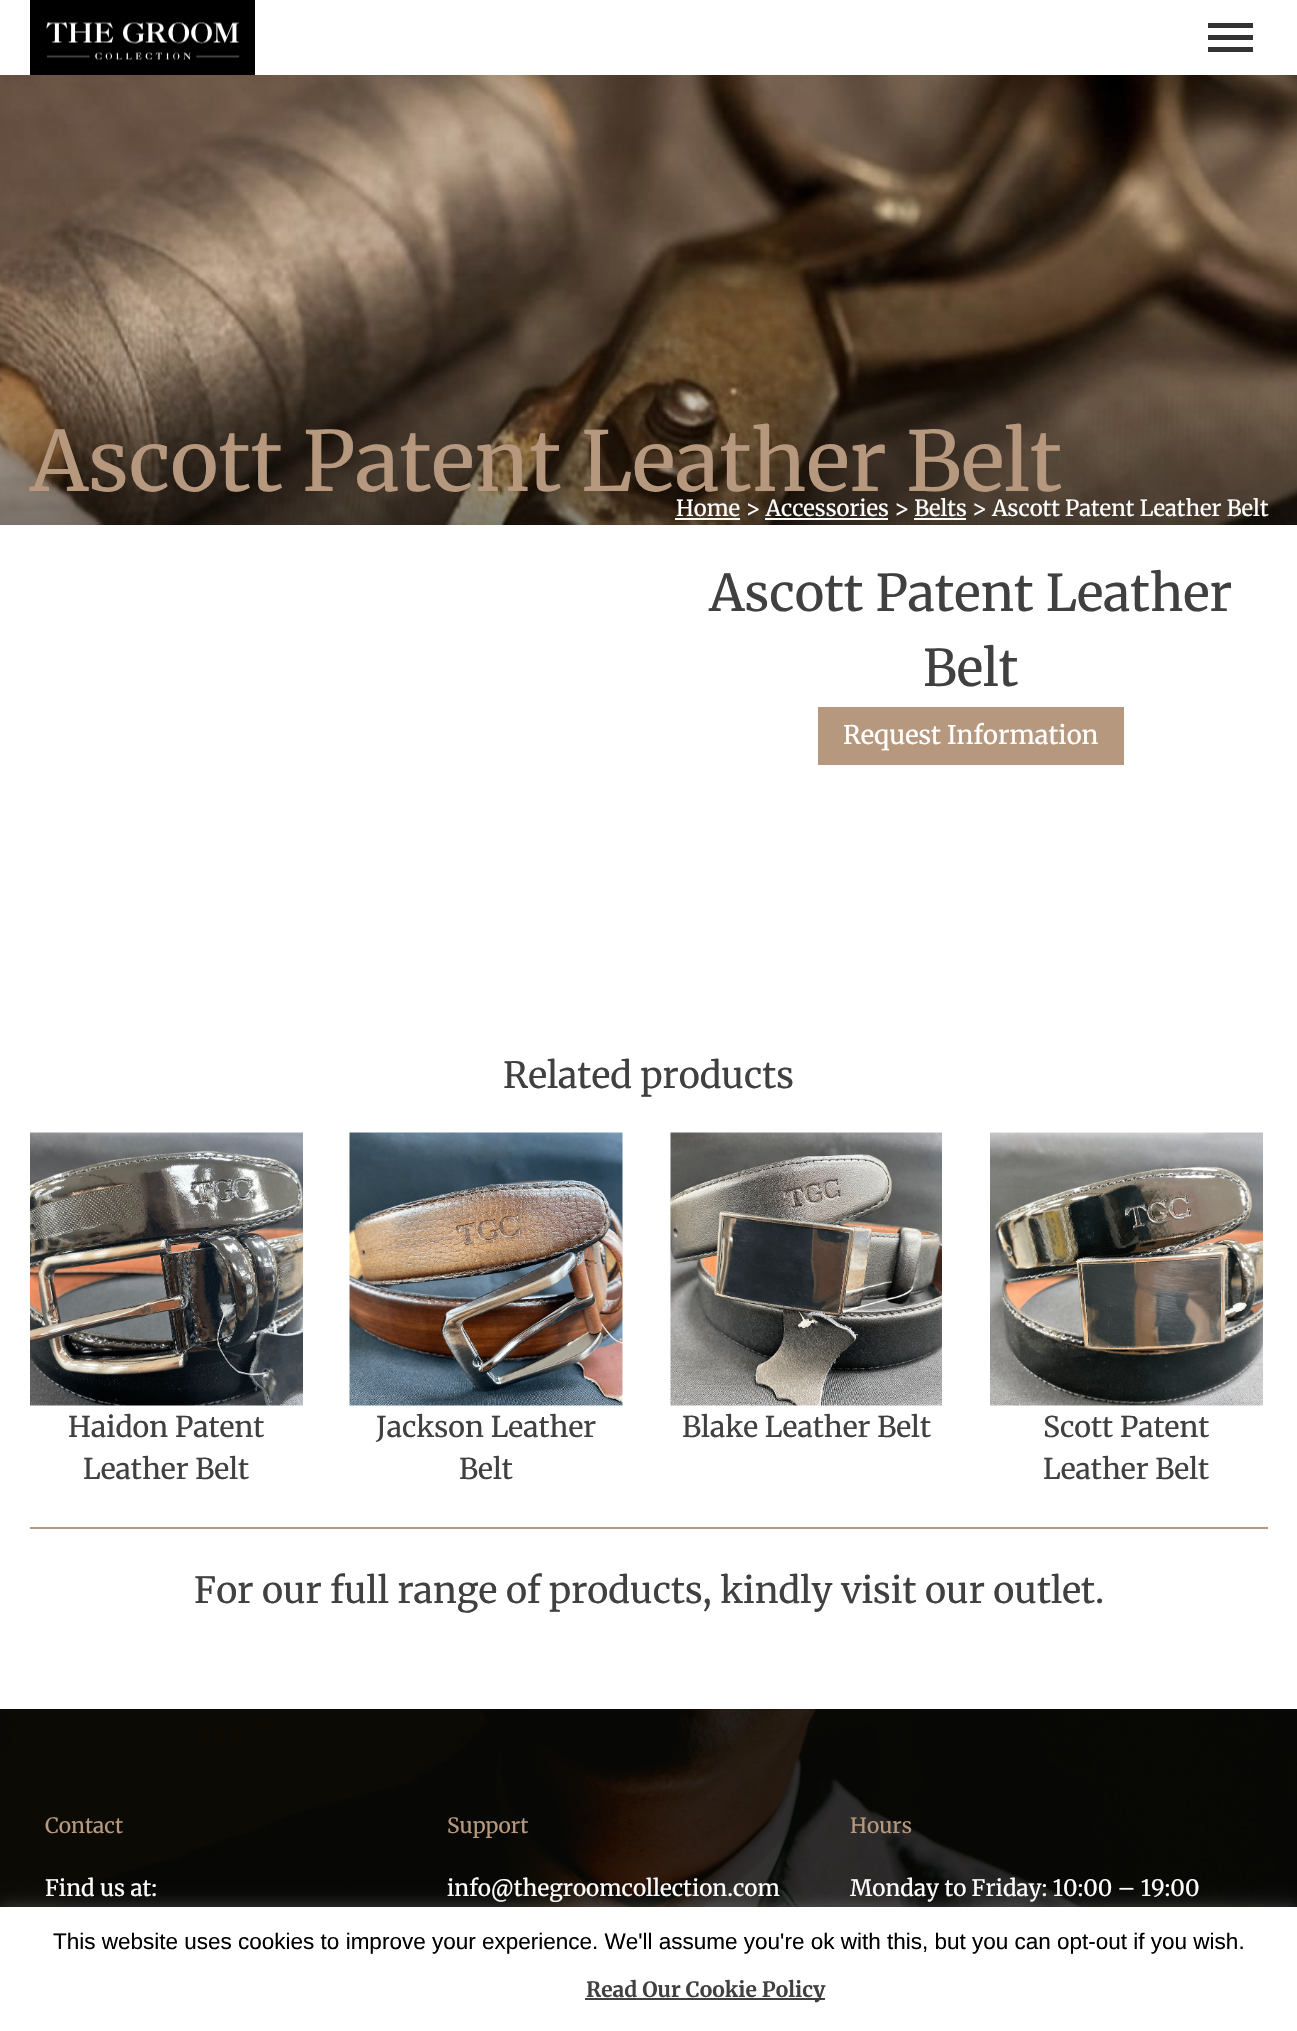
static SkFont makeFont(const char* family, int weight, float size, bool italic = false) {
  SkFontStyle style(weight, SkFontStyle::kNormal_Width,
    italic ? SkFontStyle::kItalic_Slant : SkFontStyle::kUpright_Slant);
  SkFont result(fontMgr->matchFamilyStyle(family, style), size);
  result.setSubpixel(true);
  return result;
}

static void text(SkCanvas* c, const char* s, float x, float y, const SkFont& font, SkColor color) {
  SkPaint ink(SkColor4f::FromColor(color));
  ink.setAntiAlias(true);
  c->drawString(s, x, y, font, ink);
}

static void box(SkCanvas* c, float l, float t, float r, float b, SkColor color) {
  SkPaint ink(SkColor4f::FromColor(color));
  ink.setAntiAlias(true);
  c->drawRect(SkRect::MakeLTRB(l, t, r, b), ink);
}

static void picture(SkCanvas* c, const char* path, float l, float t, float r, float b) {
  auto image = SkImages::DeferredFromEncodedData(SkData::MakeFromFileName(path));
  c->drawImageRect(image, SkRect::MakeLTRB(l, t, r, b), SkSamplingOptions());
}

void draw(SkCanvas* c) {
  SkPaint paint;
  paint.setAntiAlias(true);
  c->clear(0xffffffff);
  picture(c, "img_01.png", 0, 75, 1297, 525);
  box(c, 30, 0, 255, 75, 0xff000000);
  picture(c, "img_02.png", 46, 22, 240, 60);
  box(c, 1208, 23, 1253, 28, 0xff333333);
  box(c, 1208, 35, 1253, 40, 0xff333333);
  box(c, 1208, 47, 1253, 52, 0xff333333);
  SkFont face1 = makeFont("Merriweather", 400, 82.5f);
  text(c, "Ascott Patent Leather Belt", 30, 491, face1, 0xffb6987e);
  SkFont face2 = makeFont("Merriweather", 400, 22.1f);
  text(c, "Home > Accessories > Belts > Ascott Patent Leather Belt", 676, 516, face2, 0xffffffff);
  box(c, 675, 518, 740, 520, 0xffffffff);
  box(c, 765, 518, 888, 520, 0xffffffff);
  box(c, 914, 518, 966, 520, 0xffffffff);
  SkFont face3 = makeFont("Merriweather", 400, 50.4f);
  text(c, "Ascott Patent Leather", 709, 611, face3, 0xff404040);
  text(c, "Belt", 923, 686, face3, 0xff404040);
  box(c, 818, 707, 1124, 765, 0xffb6987e);
  SkFont face4 = makeFont("Merriweather", 400, 25.5f);
  text(c, "Request Information", 843, 744, face4, 0xffffffff);
  SkFont face5 = makeFont("Merriweather", 400, 36);
  text(c, "Related products", 503, 1088, face5, 0xff404040);
  picture(c, "img_03.png", 30, 1132, 303, 1406);
  SkFont face6 = makeFont("Merriweather", 400, 28.5f);
  text(c, "Haidon Patent", 68, 1437, face6, 0xff404040);
  text(c, "Leather Belt", 83, 1479, face6, 0xff404040);
  picture(c, "img_04.png", 349, 1132, 623, 1406);
  text(c, "Jackson Leather", 376, 1437, face6, 0xff404040);
  text(c, "Belt", 459, 1479, face6, 0xff404040);
  picture(c, "img_05.png", 670, 1132, 942, 1406);
  text(c, "Blake Leather Belt", 682, 1437, face6, 0xff404040);
  picture(c, "img_06.png", 990, 1132, 1263, 1406);
  text(c, "Scott Patent", 1043, 1437, face6, 0xff404040);
  text(c, "Leather Belt", 1043, 1479, face6, 0xff404040);
  box(c, 30, 1527, 1268, 1529, 0xffb6987e);
  text(c, "For our full range of products, kindly visit our outlet.", 194, 1603, face5, 0xff404040);
  picture(c, "img_07.png", 0, 1709, 1297, 1907);
  SkFont face7 = makeFont("Merriweather", 400, 21);
  text(c, "Contact", 45, 1833, face7, 0xffb6987e);
  SkFont face8 = makeFont("Merriweather", 400, 22.5f);
  text(c, "Find us at:", 45, 1896, face8, 0xffffffff);
  text(c, "Support", 447, 1833, face7, 0xffb6987e);
  text(c, "info@thegroomcollection.com", 447, 1896, face8, 0xffffffff);
  text(c, "Hours", 850, 1833, face7, 0xffb6987e);
  text(c, "Monday to Friday: 10:00 – 19:00", 850, 1896, face8, 0xffffffff);
  paint.setColor(0x4dacabab);
  paint.setMaskFilter(SkMaskFilter::MakeBlur(kNormal_SkBlurStyle, 7.5f));
  c->drawRect(SkRect::MakeLTRB(0, 1905, 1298, 2030), paint);
  paint.setMaskFilter(nullptr);
  box(c, 0, 1907, 1297, 2031, 0xffffffff);
  SkFont face9 = makeFont("Liberation Sans", 400, 22.5f);
  text(c, "This website uses cookies to improve your experience. We'll assume you're ok with this, but you can opt-out if you wish.", 53, 1949, face9, 0xff000000);
  box(c, 585, 1998, 825, 2000, 0xff404040);
  SkFont face10 = makeFont("Merriweather", 700, 21);
  text(c, "Read Our Cookie Policy", 586, 1997, face10, 0xff404040);
}
